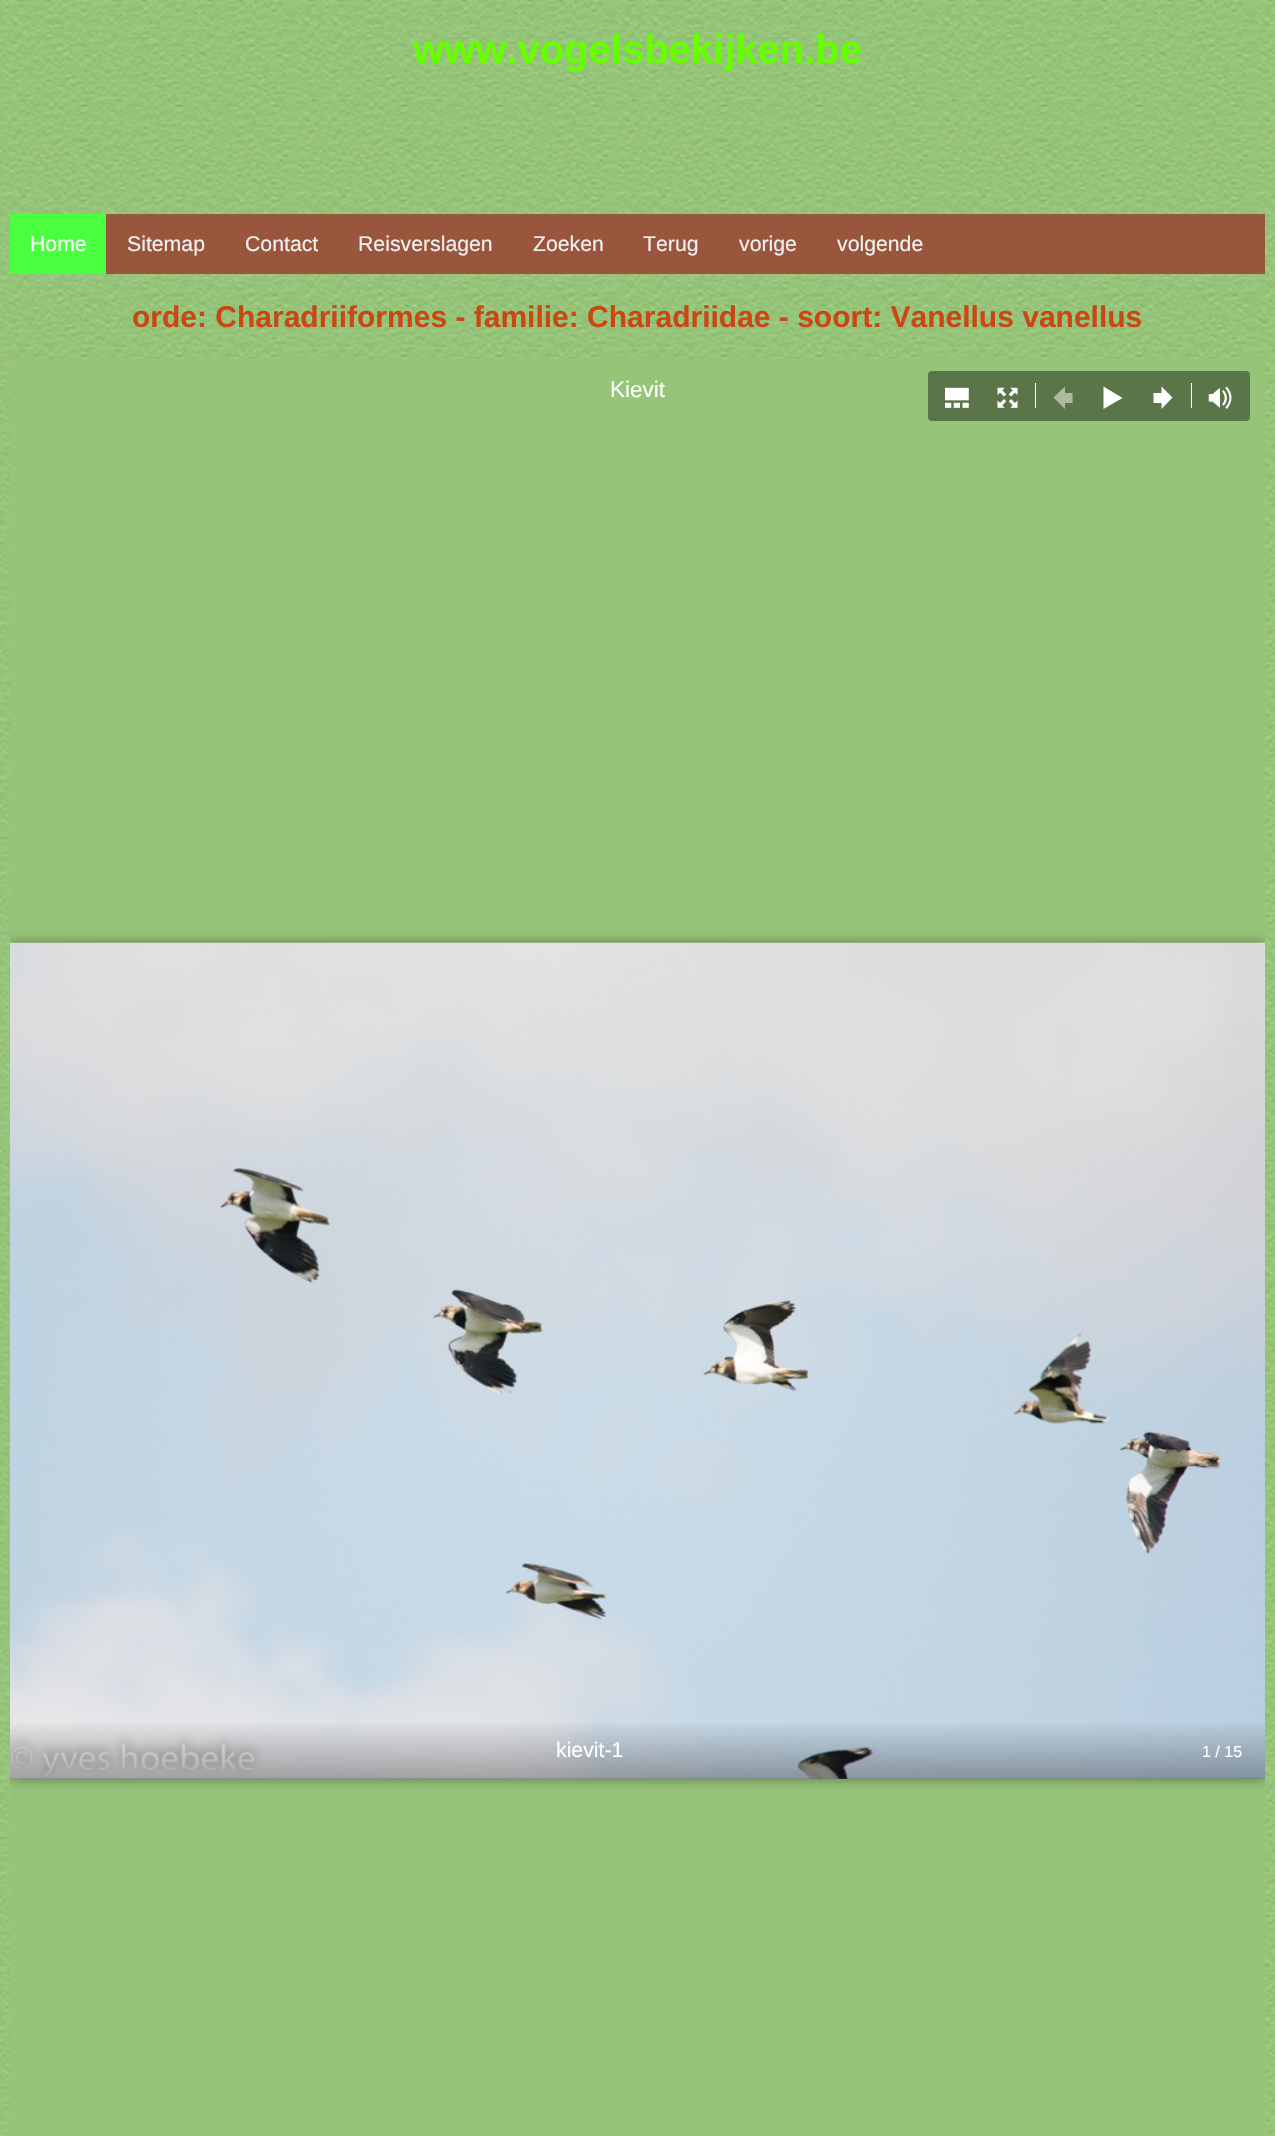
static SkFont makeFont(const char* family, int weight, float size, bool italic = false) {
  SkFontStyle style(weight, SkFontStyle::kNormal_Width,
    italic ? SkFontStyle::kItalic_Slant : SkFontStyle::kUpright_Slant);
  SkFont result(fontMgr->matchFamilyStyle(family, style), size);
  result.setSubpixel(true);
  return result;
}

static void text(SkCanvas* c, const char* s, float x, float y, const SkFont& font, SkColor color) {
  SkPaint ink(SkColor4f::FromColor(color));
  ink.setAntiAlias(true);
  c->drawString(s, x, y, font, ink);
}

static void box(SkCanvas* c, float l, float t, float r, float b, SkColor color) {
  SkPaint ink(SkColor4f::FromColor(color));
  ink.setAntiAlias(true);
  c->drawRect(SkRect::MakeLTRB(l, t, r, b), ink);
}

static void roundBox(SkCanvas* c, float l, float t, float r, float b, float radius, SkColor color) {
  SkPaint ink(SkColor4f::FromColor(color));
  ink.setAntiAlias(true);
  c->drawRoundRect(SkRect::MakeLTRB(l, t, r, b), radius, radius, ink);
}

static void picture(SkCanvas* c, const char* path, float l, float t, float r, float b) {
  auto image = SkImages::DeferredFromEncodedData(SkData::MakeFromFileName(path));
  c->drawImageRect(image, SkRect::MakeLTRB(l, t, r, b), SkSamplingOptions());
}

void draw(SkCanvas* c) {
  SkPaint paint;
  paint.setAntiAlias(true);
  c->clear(0xffffffff);
  picture(c, "img_01.png", 0, 0, 1275, 2136);
  SkFont face1 = makeFont("Liberation Sans", 700, 40);
  text(c, "www.vogelsbekijken.be", 413, 63, face1, 0xff66ff00);
  box(c, 106, 214, 1265, 274, 0xff99563d);
  box(c, 10, 214, 106, 274, 0xff4aff40);
  SkFont face2 = makeFont("Liberation Sans", 400, 21.25f);
  text(c, "Home", 30, 251, face2, 0xffffffff);
  text(c, "Sitemap", 127, 251, face2, 0xfff2f2f2);
  text(c, "Contact", 245, 251, face2, 0xfff2f2f2);
  text(c, "Reisverslagen", 358, 251, face2, 0xfff2f2f2);
  text(c, "Zoeken", 533, 251, face2, 0xfff2f2f2);
  text(c, "Terug", 643, 251, face2, 0xfff2f2f2);
  text(c, "vorige", 739, 251, face2, 0xfff2f2f2);
  text(c, "volgende", 837, 251, face2, 0xfff2f2f2);
  SkFont face3 = makeFont("Liberation Sans", 700, 30);
  text(c, "orde: Charadriiformes - familie: Charadriidae - soort: Vanellus vanellus", 132, 327, face3, 0xffcc4614);
  box(c, 10, 359, 1265, 2136, 0xff96c479);
  SkFont face4 = makeFont("Liberation Sans", 400, 22.5f);
  text(c, "Kievit", 610, 397, face4, 0xffffffff);
  roundBox(c, 928, 371, 1250, 421, 4, 0xff5a7649);
  picture(c, "img_02.png", 945, 387, 969, 408);
  picture(c, "img_03.png", 997, 387, 1018, 408);
  box(c, 1035, 383, 1036, 408, 0xffffffff);
  paint.setColor(0xffadbba4);
  c->drawPath(SkPathBuilder().moveTo(1065, 386.5f).lineTo(1065, 393).lineTo(1072.5f, 393).lineTo(1072.5f, 403).lineTo(1065, 403).lineTo(1065, 409).lineTo(1053.5f, 397.5f).close().detach(), paint);
  paint.setColor(0xffffffff);
  c->drawPath(SkPathBuilder().moveTo(1103.5f, 409).lineTo(1103.5f, 386.5f).lineTo(1122.5f, 398).close().detach(), paint);
  c->drawPath(SkPathBuilder().moveTo(1161.5f, 409).lineTo(1161.5f, 403).lineTo(1153.5f, 403).lineTo(1153.5f, 393).lineTo(1161.5f, 393).lineTo(1161.5f, 386.5f).lineTo(1172.5f, 397.5f).close().detach(), paint);
  box(c, 1191, 383, 1192, 408, 0xffffffff);
  picture(c, "img_04.png", 1208, 386, 1232, 409);
  c->save();
  c->clipRect(SkRect::MakeLTRB(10, 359, 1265, 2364));
  paint.setColor(0x66000000);
  paint.setMaskFilter(SkMaskFilter::MakeBlur(kNormal_SkBlurStyle, 6));
  c->drawRect(SkRect::MakeLTRB(10, 943, 1265, 1779), paint);
  paint.setMaskFilter(nullptr);
  c->restore();
  picture(c, "img_05.png", 10, 942, 1265, 1779);
  {
    const SkColor colors[] = {0x00000000, 0x4d000000};
    const float stops[] = {0, 1};
    const SkPoint ends[] = {{638, 1720}, {638, 1779}};
    paint.setShader(SkGradientShader::MakeLinear(ends, colors, stops, 2, SkTileMode::kClamp));
    paint.setAlpha(255);
  }
  c->drawRect(SkRect::MakeLTRB(10, 1724, 1265, 1779), paint);
  text(c, "kievit-1", 556, 1757, face2, 0xffffffff);
  SkFont face5 = makeFont("Liberation Sans", 400, 16);
  text(c, "1 / 15", 1202, 1757, face5, 0xffffffff);
}
